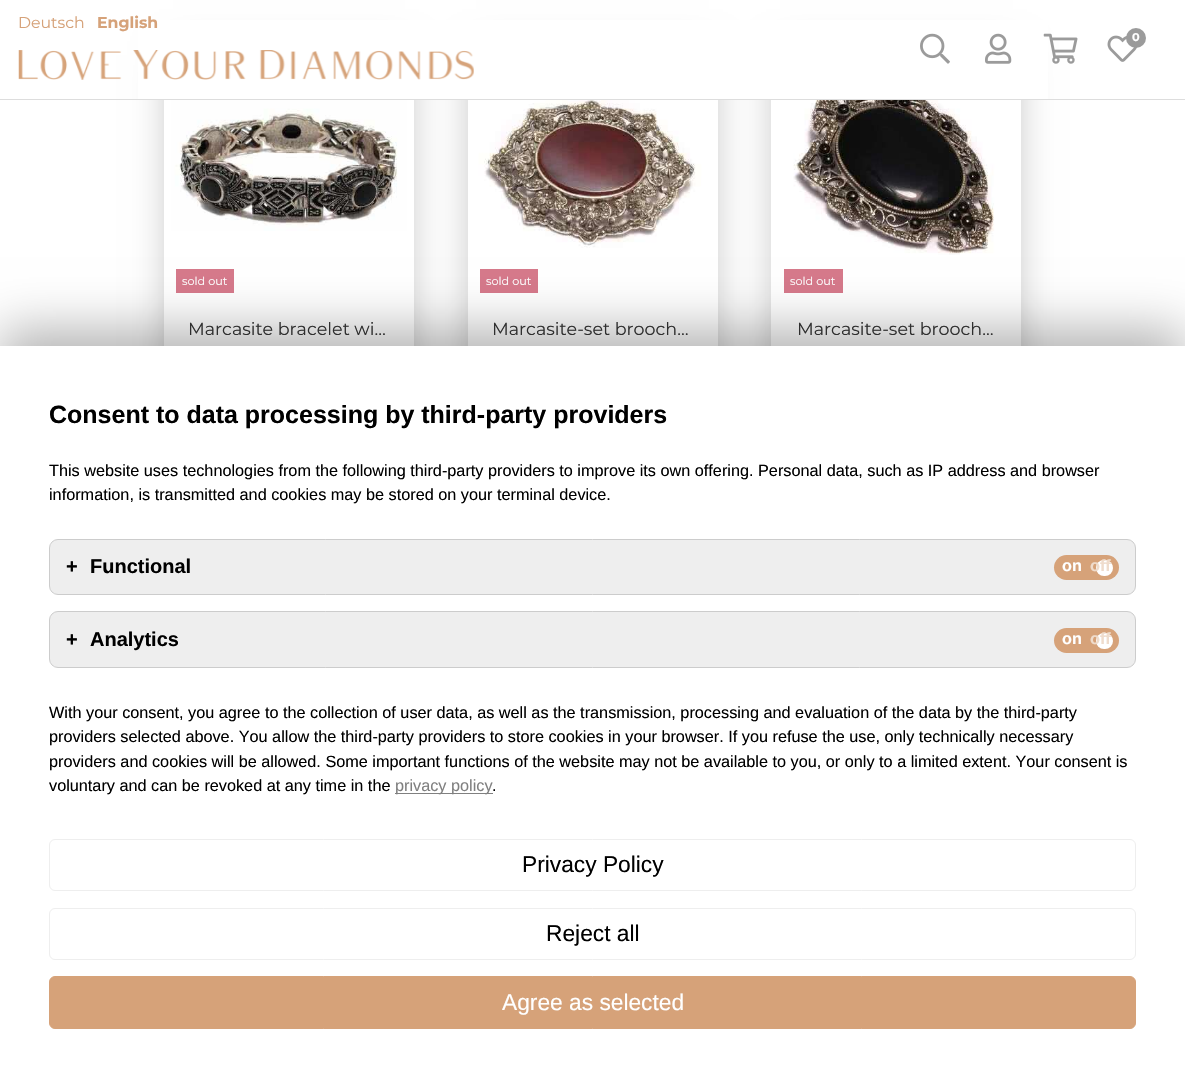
static SkFont makeFont(const char* family, int weight, float size, bool italic = false) {
  SkFontStyle style(weight, SkFontStyle::kNormal_Width,
    italic ? SkFontStyle::kItalic_Slant : SkFontStyle::kUpright_Slant);
  SkFont result(fontMgr->matchFamilyStyle(family, style), size);
  result.setSubpixel(true);
  return result;
}

static void text(SkCanvas* c, const char* s, float x, float y, const SkFont& font, SkColor color) {
  SkPaint ink(SkColor4f::FromColor(color));
  ink.setAntiAlias(true);
  c->drawString(s, x, y, font, ink);
}

static void box(SkCanvas* c, float l, float t, float r, float b, SkColor color) {
  SkPaint ink(SkColor4f::FromColor(color));
  ink.setAntiAlias(true);
  c->drawRect(SkRect::MakeLTRB(l, t, r, b), ink);
}

static void roundBox(SkCanvas* c, float l, float t, float r, float b, float radius, SkColor color) {
  SkPaint ink(SkColor4f::FromColor(color));
  ink.setAntiAlias(true);
  c->drawRoundRect(SkRect::MakeLTRB(l, t, r, b), radius, radius, ink);
}

static void picture(SkCanvas* c, const char* path, float l, float t, float r, float b) {
  auto image = SkImages::DeferredFromEncodedData(SkData::MakeFromFileName(path));
  c->drawImageRect(image, SkRect::MakeLTRB(l, t, r, b), SkSamplingOptions());
}

void draw(SkCanvas* c) {
  SkPaint paint;
  paint.setAntiAlias(true);
  c->clear(0xffffffff);
  paint.setColor(0x4d000000);
  paint.setMaskFilter(SkMaskFilter::MakeBlur(kNormal_SkBlurStyle, 19));
  c->drawRect(SkRect::MakeLTRB(173, 55, 405, 404), paint);
  paint.setMaskFilter(nullptr);
  paint.setMaskFilter(SkMaskFilter::MakeBlur(kNormal_SkBlurStyle, 19));
  c->drawRect(SkRect::MakeLTRB(476, 55, 709, 404), paint);
  paint.setMaskFilter(nullptr);
  paint.setMaskFilter(SkMaskFilter::MakeBlur(kNormal_SkBlurStyle, 19));
  c->drawRect(SkRect::MakeLTRB(780, 55, 1013, 404), paint);
  paint.setMaskFilter(nullptr);
  box(c, 138, 20, 1048, 99, 0xffffffff);
  box(c, 0, 99, 1185, 100, 0xffdddddd);
  SkFont face1 = makeFont("Montserrat", 400, 15.75f);
  text(c, "Deutsch", 18, 28, face1, 0xffd6a279);
  SkFont face2 = makeFont("Montserrat", 700, 15.75f);
  text(c, "English", 97, 28, face2, 0xffd6a279);
  picture(c, "img_01.png", 920, 33, 950, 64);
  picture(c, "img_02.png", 985, 33, 1012, 64);
  picture(c, "img_03.png", 1043, 33, 1078, 64);
  picture(c, "img_04.png", 1107, 35, 1137, 62);
  paint.setColor(0xff9b9b9b);
  c->drawCircle(1136, 38, 10, paint);
  SkFont face3 = makeFont("Montserrat", 700, 11.25f);
  text(c, "0", 1132, 41, face3, 0xffffffff);
  picture(c, "img_05.png", 18, 50, 474, 80);
  box(c, 164, 100, 414, 346, 0xffffffff);
  picture(c, "img_06.png", 171, 100, 407, 231);
  box(c, 176, 269, 234, 293, 0xffd6798b);
  SkFont face4 = makeFont("Montserrat", 400, 11.25f);
  text(c, "sold out", 182, 285, face4, 0xffffffff);
  SkFont face5 = makeFont("Montserrat", 400, 17.5f);
  text(c, "Marcasite bracelet wi…", 188, 335, face5, 0xff373737);
  box(c, 468, 100, 718, 346, 0xffffffff);
  picture(c, "img_07.png", 470, 100, 715, 248);
  box(c, 480, 269, 538, 293, 0xffd6798b);
  text(c, "sold out", 486, 285, face4, 0xffffffff);
  text(c, "Marcasite-set brooch…", 492, 335, face5, 0xff373737);
  box(c, 771, 100, 1021, 346, 0xffffffff);
  picture(c, "img_08.png", 774, 100, 1019, 255);
  box(c, 784, 269, 843, 293, 0xffd6798b);
  text(c, "sold out", 790, 285, face4, 0xffffffff);
  text(c, "Marcasite-set brooch…", 797, 335, face5, 0xff373737);
  paint.setColor(0x4d000000);
  paint.setMaskFilter(SkMaskFilter::MakeBlur(kNormal_SkBlurStyle, 24.5f));
  c->drawRect(SkRect::MakeLTRB(0, 330, 1185, 1061), paint);
  paint.setMaskFilter(nullptr);
  box(c, 0, 346, 1185, 1077, 0xffffffff);
  SkFont face6 = makeFont("Liberation Sans", 700, 25);
  text(c, "Consent to data processing by third-party providers", 49, 423, face6, 0xff000000);
  SkFont face7 = makeFont("Liberation Sans", 400, 16.25f);
  text(c, "This website uses technologies from the following third-party providers to improve its own offering. Personal data, such as IP address and browser", 49, 476, face7, 0xff000000);
  text(c, "information, is transmitted and cookies may be stored on your terminal device.", 49, 500, face7, 0xff000000);
  paint.setColor(0xffeeeeee);
  c->drawRoundRect(SkRect::MakeLTRB(49.5f, 539.5f, 1135.5f, 594.5f), 8.5f, 8.5f, paint);
  paint.setStyle(SkPaint::kStroke_Style);
  paint.setStrokeWidth(1);
  paint.setColor(0xffcccccc);
  c->drawRoundRect(SkRect::MakeLTRB(49.5f, 539.5f, 1135.5f, 594.5f), 8.5f, 8.5f, paint);
  SkFont face8 = makeFont("Liberation Sans", 700, 20);
  text(c, "+", 66, 573, face8, 0xff000000);
  text(c, "Functional", 90, 573, face8, 0xff000000);
  roundBox(c, 1054, 555, 1119, 580, 12.5f, 0xffd6a279);
  roundBox(c, 1096, 560, 1113, 576, 8, 0xffffffff);
  SkFont face9 = makeFont("Liberation Sans", 700, 16.25f);
  text(c, "off", 1090, 571, face9, 0xffefdccc);
  text(c, "on", 1062, 571, face9, 0xffffffff);
  paint.setStyle(SkPaint::kFill_Style);
  paint.setColor(0xffeeeeee);
  c->drawRoundRect(SkRect::MakeLTRB(49.5f, 611.5f, 1135.5f, 667.5f), 8.5f, 8.5f, paint);
  paint.setStyle(SkPaint::kStroke_Style);
  paint.setColor(0xffcccccc);
  c->drawRoundRect(SkRect::MakeLTRB(49.5f, 611.5f, 1135.5f, 667.5f), 8.5f, 8.5f, paint);
  text(c, "+", 66, 646, face8, 0xff000000);
  text(c, "Analytics", 90, 646, face8, 0xff000000);
  roundBox(c, 1054, 628, 1119, 653, 12.5f, 0xffd6a279);
  roundBox(c, 1096, 633, 1113, 649, 8, 0xffffffff);
  text(c, "off", 1090, 644, face9, 0xffefdccc);
  text(c, "on", 1062, 644, face9, 0xffffffff);
  text(c, "With your consent, you agree to the collection of user data, as well as the transmission, processing and evaluation of the data by the third-party", 49, 718, face7, 0xff000000);
  text(c, "providers selected above. You allow the third-party providers to store cookies in your browser. If you refuse the use, only technically necessary", 49, 742, face7, 0xff000000);
  text(c, "providers and cookies will be allowed. Some important functions of the website may not be available to you, or only to a limited extent. Your consent is", 49, 767, face7, 0xff000000);
  text(c, "voluntary and can be revoked at any time in the", 49, 791, face7, 0xff000000);
  box(c, 395, 793, 493, 794, 0xff808080);
  text(c, "privacy policy", 395, 791, face7, 0xff808080);
  text(c, ".", 492, 791, face7, 0xff000000);
  paint.setColor(0xffeeeeee);
  c->drawRoundRect(SkRect::MakeLTRB(49.5f, 839.5f, 1135.5f, 890.5f), 5.5f, 5.5f, paint);
  SkFont face10 = makeFont("Liberation Sans", 400, 22.75f);
  text(c, "Privacy Policy", 522, 872, face10, 0xff000000);
  c->drawRoundRect(SkRect::MakeLTRB(49.5f, 908.5f, 1135.5f, 959.5f), 5.5f, 5.5f, paint);
  text(c, "Reject all", 546, 941, face10, 0xff000000);
  paint.setStyle(SkPaint::kFill_Style);
  paint.setColor(0xffd6a279);
  c->drawRoundRect(SkRect::MakeLTRB(49.5f, 976.5f, 1135.5f, 1028.5f), 5.5f, 5.5f, paint);
  paint.setStyle(SkPaint::kStroke_Style);
  c->drawRoundRect(SkRect::MakeLTRB(49.5f, 976.5f, 1135.5f, 1028.5f), 5.5f, 5.5f, paint);
  text(c, "Agree as selected", 502, 1010, face10, 0xffffffff);
}
